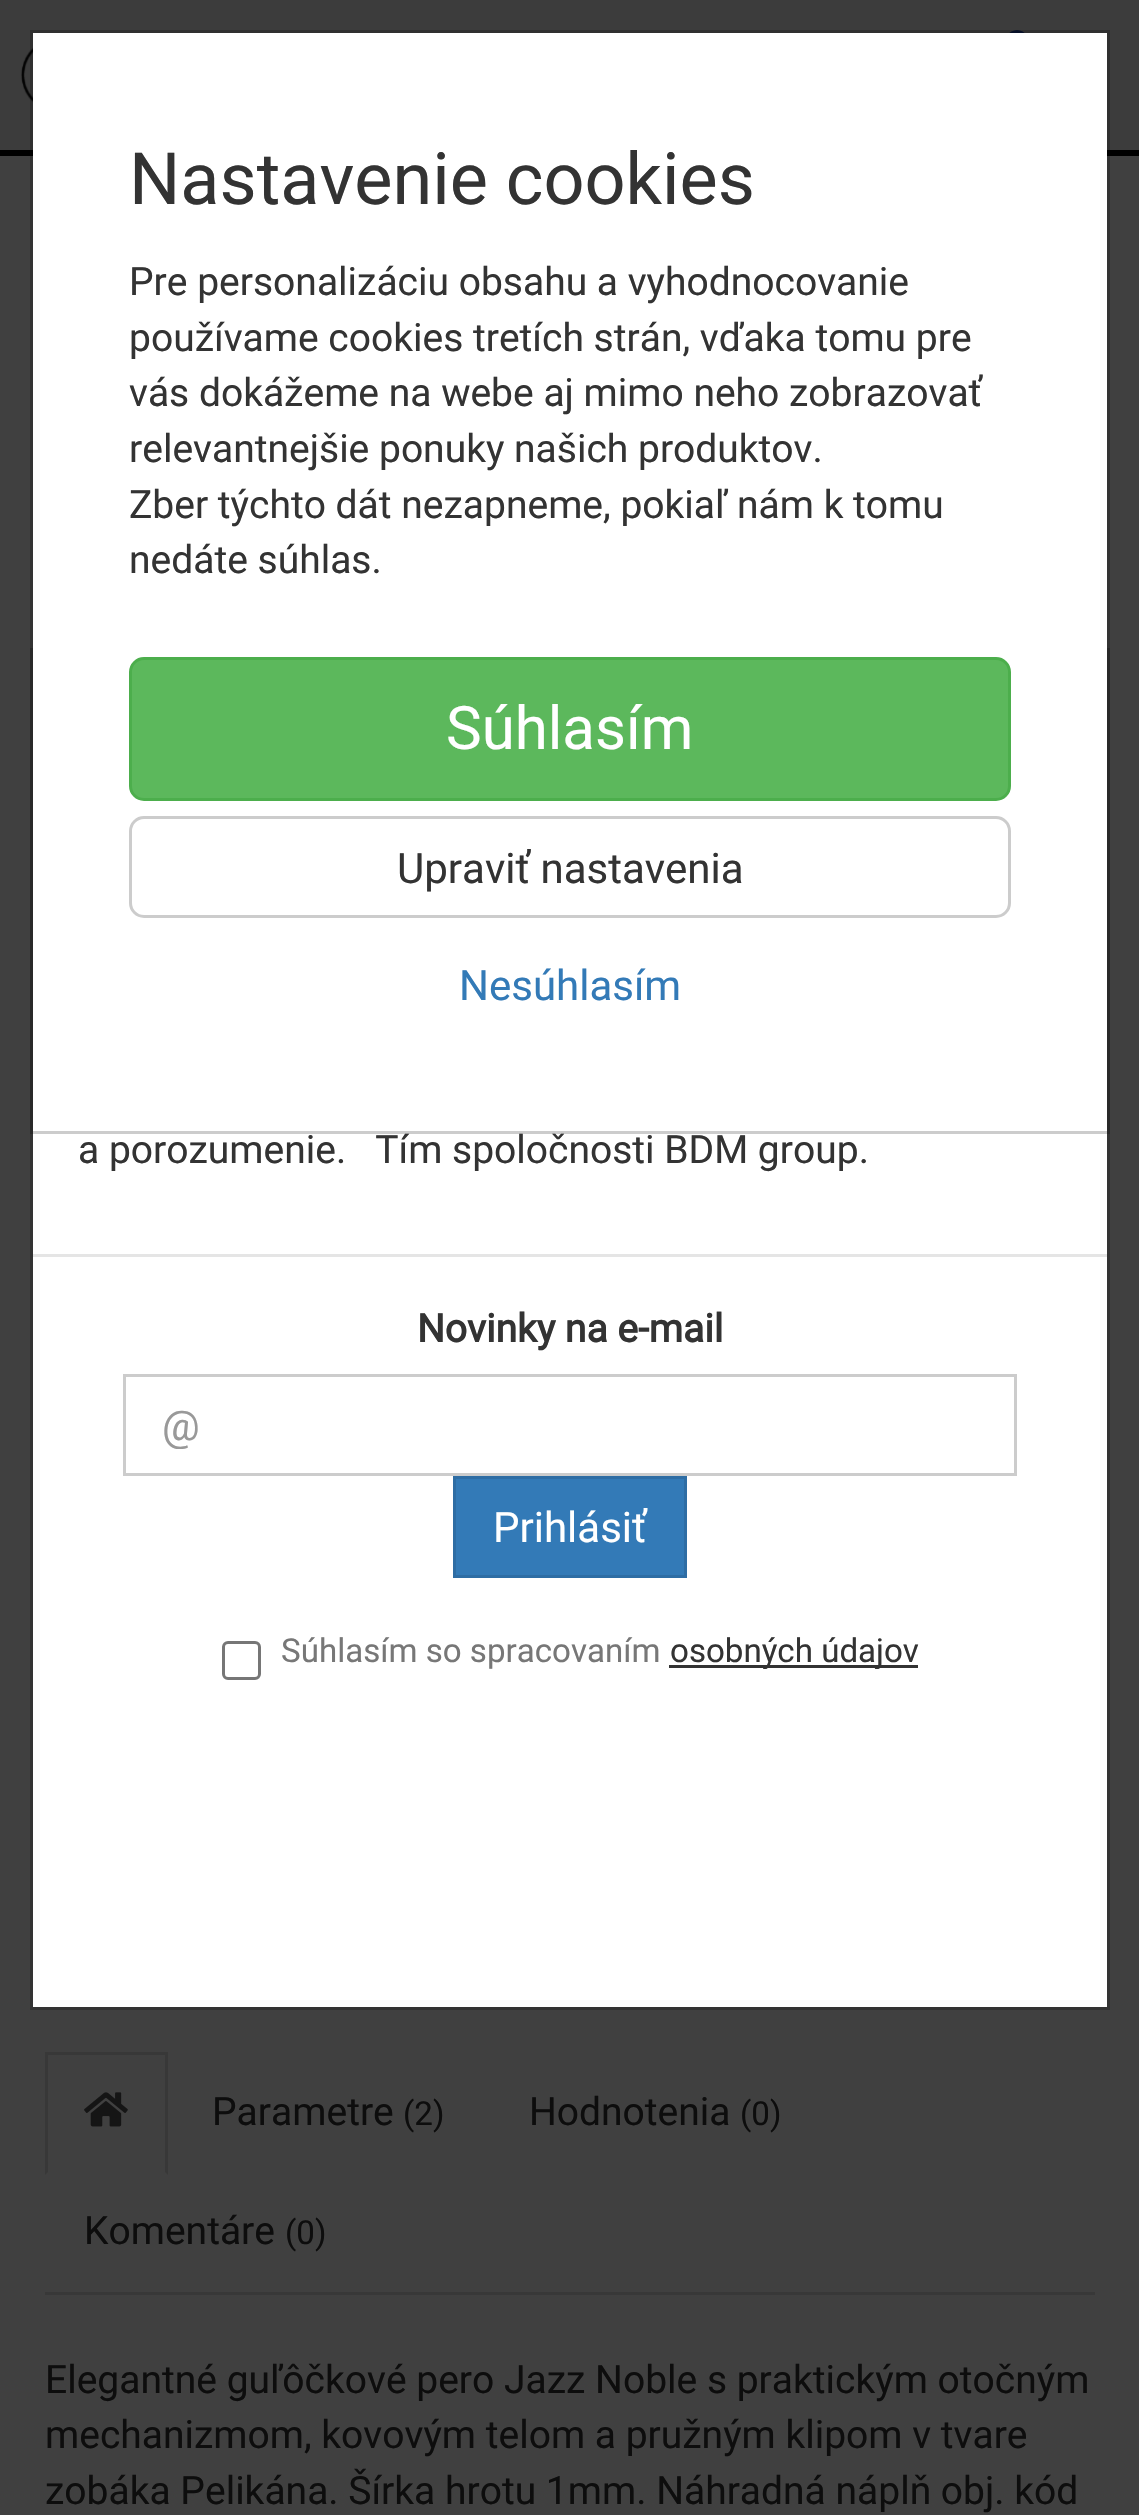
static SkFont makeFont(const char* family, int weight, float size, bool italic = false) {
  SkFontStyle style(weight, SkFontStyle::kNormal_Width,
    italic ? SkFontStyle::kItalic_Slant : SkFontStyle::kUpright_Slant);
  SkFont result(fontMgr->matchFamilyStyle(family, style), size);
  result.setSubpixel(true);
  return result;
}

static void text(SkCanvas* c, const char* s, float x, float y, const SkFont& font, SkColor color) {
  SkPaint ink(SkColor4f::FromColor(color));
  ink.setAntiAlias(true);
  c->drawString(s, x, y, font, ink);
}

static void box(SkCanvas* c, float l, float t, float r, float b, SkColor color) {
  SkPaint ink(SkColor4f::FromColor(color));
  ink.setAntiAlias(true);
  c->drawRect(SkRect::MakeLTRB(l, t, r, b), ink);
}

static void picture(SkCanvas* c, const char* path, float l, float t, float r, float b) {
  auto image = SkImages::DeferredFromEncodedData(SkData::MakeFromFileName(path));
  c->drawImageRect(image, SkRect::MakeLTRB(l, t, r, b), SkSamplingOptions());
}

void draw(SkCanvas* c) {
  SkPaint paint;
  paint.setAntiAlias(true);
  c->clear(0xff404040);
  box(c, 0, 150, 1139, 156, 0xff000000);
  box(c, 0, 0, 1139, 150, 0xff3c3c3c);
  picture(c, "img_01.png", 20, 47, 33, 103);
  paint.setColor(0xff081431);
  c->drawOval(SkRect::MakeLTRB(1002, 30, 1032, 72), paint);
  box(c, 33, 1131, 1107, 2007, 0xffffffff);
  paint.setStyle(SkPaint::kStroke_Style);
  paint.setStrokeWidth(3);
  paint.setColor(0x33000000);
  c->drawRect(SkRect::MakeLTRB(31.5f, 649.5f, 1108.5f, 2008.5f), paint);
  box(c, 33, 33, 1107, 1131, 0xffffffff);
  SkFont face1 = makeFont("Roboto", 400, 39);
  text(c, "a porozumenie.   Tím spoločnosti BDM group.", 78, 1163, face1, 0xff333333);
  c->drawRect(SkRect::MakeLTRB(31.5f, 31.5f, 1108.5f, 1132.5f), paint);
  SkFont face2 = makeFont("Roboto", 400, 72);
  text(c, "Nastavenie cookies", 129, 204, face2, 0xff333333);
  text(c, "Pre personalizáciu obsahu a vyhodnocovanie", 129, 295, face1, 0xff333333);
  text(c, "používame cookies tretích strán, vďaka tomu pre", 129, 351, face1, 0xff333333);
  text(c, "vás dokážeme na webe aj mimo neho zobrazovať", 129, 406, face1, 0xff333333);
  text(c, "relevantnejšie ponuky našich produktov.", 129, 462, face1, 0xff333333);
  text(c, "Zber týchto dát nezapneme, pokiaľ nám k tomu", 129, 518, face1, 0xff333333);
  text(c, "nedáte súhlas.", 129, 573, face1, 0xff333333);
  paint.setStyle(SkPaint::kFill_Style);
  paint.setColor(0xff5cb85c);
  c->drawRoundRect(SkRect::MakeLTRB(130.5f, 658.5f, 1009.5f, 799.5f), 13.5f, 13.5f, paint);
  paint.setStyle(SkPaint::kStroke_Style);
  paint.setColor(0xff4cae4c);
  c->drawRoundRect(SkRect::MakeLTRB(130.5f, 658.5f, 1009.5f, 799.5f), 13.5f, 13.5f, paint);
  SkFont face3 = makeFont("Roboto", 400, 60);
  text(c, "Súhlasím", 446, 749, face3, 0xffffffff);
  paint.setColor(0xffcccccc);
  c->drawRoundRect(SkRect::MakeLTRB(130.5f, 817.5f, 1009.5f, 916.5f), 13.5f, 13.5f, paint);
  SkFont face4 = makeFont("Roboto", 400, 42);
  text(c, "Upraviť nastavenia", 397, 883, face4, 0xff333333);
  text(c, "Nesúhlasím", 459, 1000, face4, 0xff337ab7);
  box(c, 33, 1254, 1107, 1257, 0xffe5e5e5);
  SkFont face5 = makeFont("Roboto", 700, 39);
  text(c, "Novinky na e-mail", 417, 1342, face5, 0xff333333);
  c->drawRect(SkRect::MakeLTRB(124.5f, 1375.5f, 1015.5f, 1474.5f), paint);
  c->save();
  c->clipRect(SkRect::MakeLTRB(162, 1401, 978, 1449));
  text(c, "@", 162, 1440, face4, 0xff999999);
  c->restore();
  paint.setStyle(SkPaint::kFill_Style);
  paint.setColor(0xff337ab7);
  c->drawRect(SkRect::MakeLTRB(454.5f, 1477.5f, 685.5f, 1576.5f), paint);
  paint.setStyle(SkPaint::kStroke_Style);
  paint.setColor(0xff2e6da4);
  c->drawRect(SkRect::MakeLTRB(454.5f, 1477.5f, 685.5f, 1576.5f), paint);
  text(c, "Prihlásiť", 493, 1542, face4, 0xffffffff);
  paint.setColor(0xff767676);
  c->drawRoundRect(SkRect::MakeLTRB(223.5f, 1642.5f, 259.5f, 1678.5f), 4.5f, 4.5f, paint);
  SkFont face6 = makeFont("Roboto", 400, 33.1f);
  text(c, "Súhlasím so spracovaním", 281, 1662, face6, 0xff777777);
  box(c, 669, 1665, 918, 1668, 0xff333333);
  text(c, "osobných údajov", 670, 1662, face6, 0xff333333);
  box(c, 45, 2292, 1095, 2295, 0xff383838);
  box(c, 45, 2052, 168, 2055, 0xff383838);
  paint.setStyle(SkPaint::kFill_Style);
  paint.setColor(0xff383838);
  c->drawPath(SkPathBuilder().moveTo(168, 2052).lineTo(168, 2175).lineTo(165, 2172).lineTo(165, 2055).close().detach(), paint);
  c->drawPath(SkPathBuilder().moveTo(45, 2175).lineTo(45, 2052).lineTo(48, 2055).lineTo(48, 2172).close().detach(), paint);
  picture(c, "img_02.png", 84, 2092, 128, 2127);
  text(c, "Parametre", 212, 2125, face1, 0xff0d0d0d);
  text(c, "(2)", 403, 2125, face6, 0xff0d0d0d);
  text(c, "Hodnotenia", 529, 2125, face1, 0xff0d0d0d);
  text(c, "(0)", 740, 2125, face6, 0xff0d0d0d);
  text(c, "Komentáre", 84, 2244, face1, 0xff0d0d0d);
  text(c, "(0)", 285, 2244, face6, 0xff0d0d0d);
  text(c, "Elegantné guľôčkové pero Jazz Noble s praktickým otočným", 45, 2393, face1, 0xff0d0d0d);
  text(c, "mechanizmom, kovovým telom a pružným klipom v tvare", 45, 2448, face1, 0xff0d0d0d);
  text(c, "zobáka Pelikána. Šírka hrotu 1mm. Náhradná náplň obj. kód", 45, 2504, face1, 0xff0d0d0d);
}
